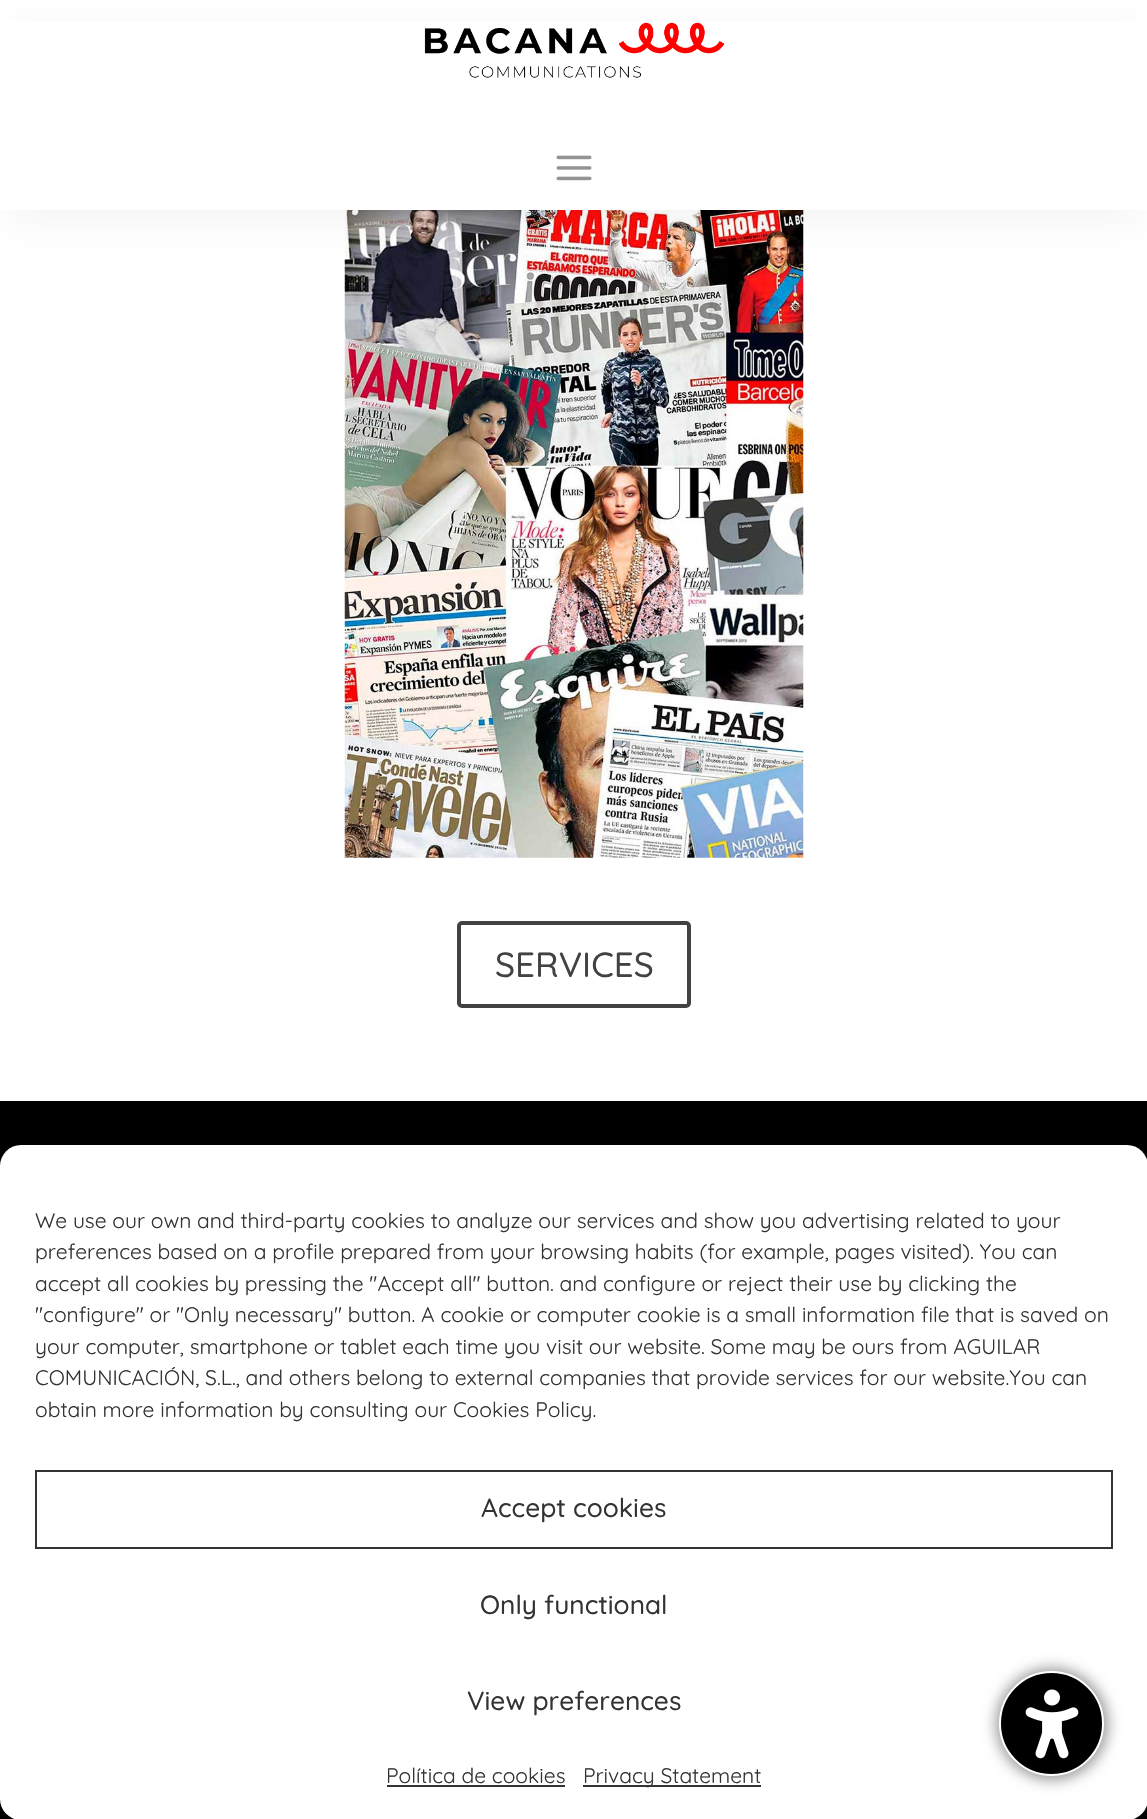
static SkFont makeFont(const char* family, int weight, float size, bool italic = false) {
  SkFontStyle style(weight, SkFontStyle::kNormal_Width,
    italic ? SkFontStyle::kItalic_Slant : SkFontStyle::kUpright_Slant);
  SkFont result(fontMgr->matchFamilyStyle(family, style), size);
  result.setSubpixel(true);
  return result;
}

static void text(SkCanvas* c, const char* s, float x, float y, const SkFont& font, SkColor color) {
  SkPaint ink(SkColor4f::FromColor(color));
  ink.setAntiAlias(true);
  c->drawString(s, x, y, font, ink);
}

static void box(SkCanvas* c, float l, float t, float r, float b, SkColor color) {
  SkPaint ink(SkColor4f::FromColor(color));
  ink.setAntiAlias(true);
  c->drawRect(SkRect::MakeLTRB(l, t, r, b), ink);
}

static void roundBox(SkCanvas* c, float l, float t, float r, float b, float radius, SkColor color) {
  SkPaint ink(SkColor4f::FromColor(color));
  ink.setAntiAlias(true);
  c->drawRoundRect(SkRect::MakeLTRB(l, t, r, b), radius, radius, ink);
}

static void picture(SkCanvas* c, const char* path, float l, float t, float r, float b) {
  auto image = SkImages::DeferredFromEncodedData(SkData::MakeFromFileName(path));
  c->drawImageRect(image, SkRect::MakeLTRB(l, t, r, b), SkSamplingOptions());
}

void draw(SkCanvas* c) {
  SkPaint paint;
  paint.setAntiAlias(true);
  c->clear(0xffffffff);
  picture(c, "img_03.png", 344, 210, 804, 858);
  paint.setColor(0x0a000000);
  paint.setMaskFilter(SkMaskFilter::MakeBlur(kNormal_SkBlurStyle, 16));
  c->drawRect(SkRect::MakeLTRB(11, 32, 1138, 221), paint);
  paint.setMaskFilter(nullptr);
  box(c, 0, 21, 1147, 210, 0xffffffff);
  picture(c, "img_01.png", 424, 22, 725, 78);
  picture(c, "img_02.png", 556, 155, 592, 181);
  paint.setStyle(SkPaint::kStroke_Style);
  paint.setStrokeWidth(4);
  paint.setColor(0xff414244);
  c->drawRoundRect(SkRect::MakeLTRB(459, 923, 689, 1006), 3, 3, paint);
  SkFont face1 = makeFont("Quicksand", 500, 35);
  text(c, "SERVICES", 495, 977, face1, 0xff414244);
  box(c, 0, 1101, 1147, 1819, 0xff000000);
  roundBox(c, 0, 1145, 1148, 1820, 21, 0xffffffff);
  SkFont face2 = makeFont("Quicksand", 400, 21);
  text(c, "We use our own and third-party cookies to analyze our services and show you advertising related to your", 35, 1228, face2, 0xff333333);
  text(c, "preferences based on a profile prepared from your browsing habits (for example, pages visited). You can", 35, 1259, face2, 0xff333333);
  text(c, "accept all cookies by pressing the \"Accept all\" button. and configure or reject their use by clicking the", 35, 1291, face2, 0xff333333);
  text(c, "\"configure\" or \"Only necessary\" button. A cookie or computer cookie is a small information file that is saved on", 35, 1322, face2, 0xff333333);
  text(c, "your computer, smartphone or tablet each time you visit our website. Some may be ours from AGUILAR", 35, 1354, face2, 0xff333333);
  text(c, "COMUNICACIÓN, S.L., and others belong to external companies that provide services for our website.You can", 35, 1385, face2, 0xff333333);
  text(c, "obtain more information by consulting our Cookies Policy.", 35, 1417, face2, 0xff333333);
  paint.setStrokeWidth(2);
  paint.setColor(0xff333333);
  c->drawRect(SkRect::MakeLTRB(36, 1471, 1112, 1548), paint);
  SkFont face3 = makeFont("Quicksand", 500, 26.25f);
  text(c, "Accept cookies", 481, 1517, face3, 0xff333333);
  text(c, "Only functional", 480, 1614, face3, 0xff333333);
  text(c, "View preferences", 467, 1710, face3, 0xff333333);
  text(c, "Política de cookies", 386, 1783, face2, 0xff333333);
  box(c, 387, 1785, 565, 1787, 0xff333333);
  box(c, 583, 1785, 761, 1787, 0xff333333);
  text(c, "Privacy Statement", 583, 1783, face2, 0xff333333);
  paint.setStyle(SkPaint::kFill_Style);
  paint.setColor(0x66000000);
  paint.setMaskFilter(SkMaskFilter::MakeBlur(kNormal_SkBlurStyle, 7));
  c->drawRoundRect(SkRect::MakeLTRB(996, 1668, 1108, 1780), 56, 56, paint);
  paint.setMaskFilter(nullptr);
  paint.setColor(0xff000000);
  c->drawCircle(1051.5f, 1723.5f, 51.5f, paint);
  paint.setStyle(SkPaint::kStroke_Style);
  paint.setColor(0xffffffff);
  c->drawCircle(1051.5f, 1723.5f, 51.5f, paint);
  picture(c, "img_04.png", 1025, 1689, 1079, 1759);
}
